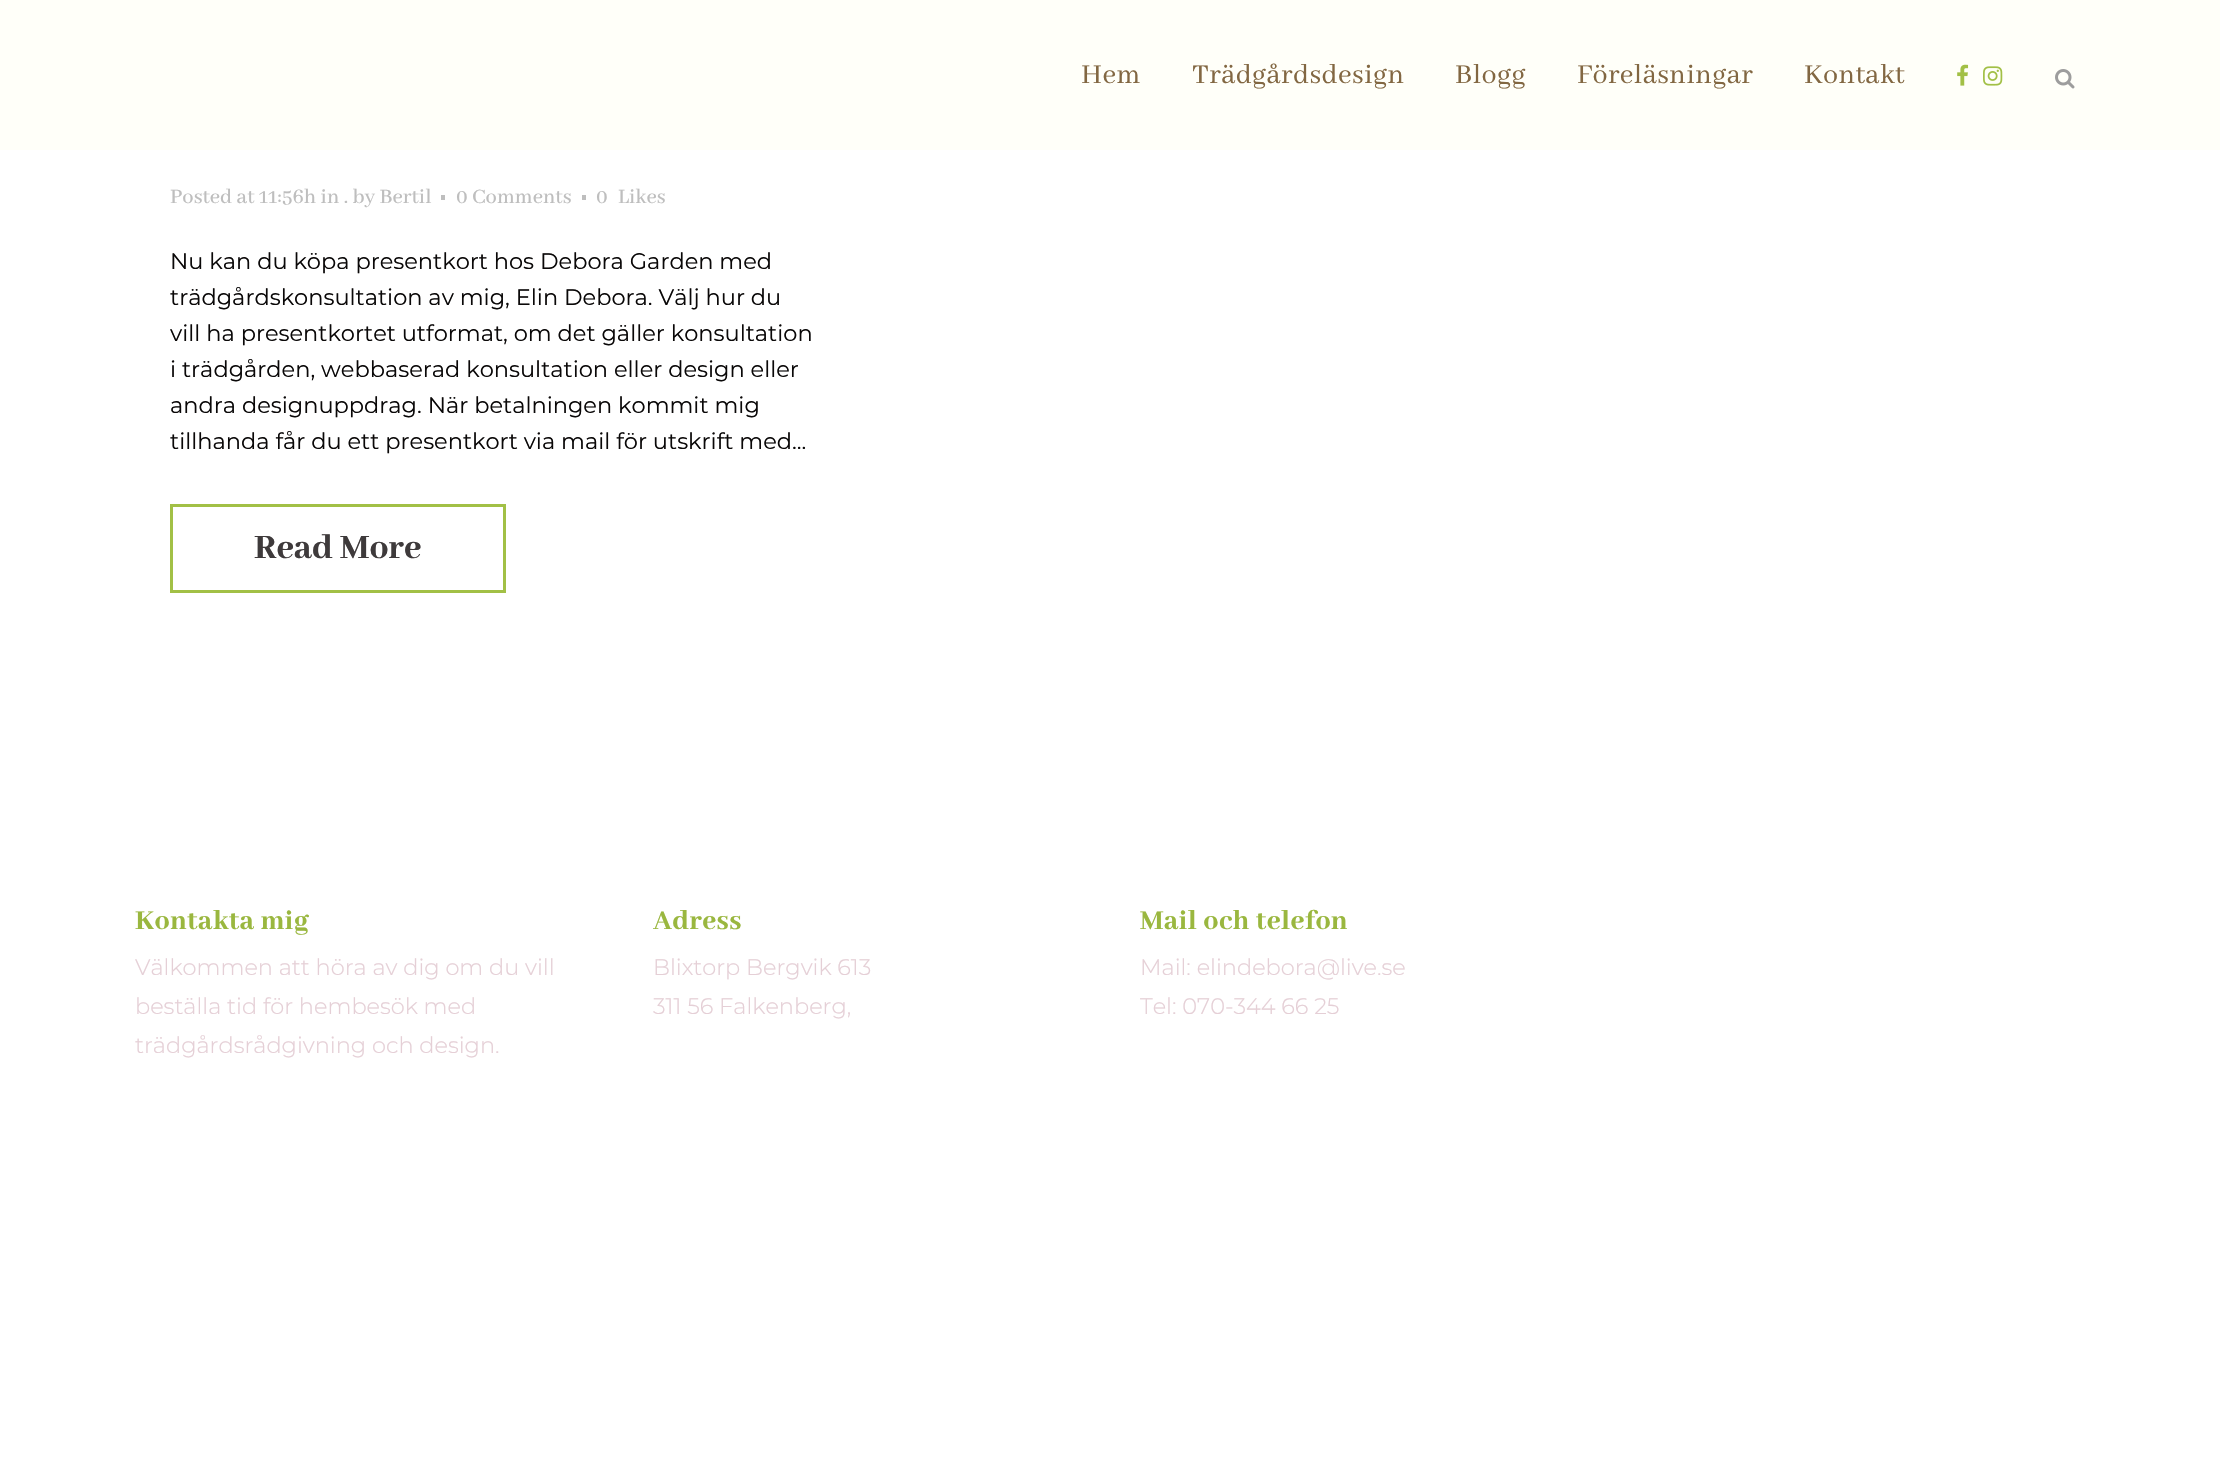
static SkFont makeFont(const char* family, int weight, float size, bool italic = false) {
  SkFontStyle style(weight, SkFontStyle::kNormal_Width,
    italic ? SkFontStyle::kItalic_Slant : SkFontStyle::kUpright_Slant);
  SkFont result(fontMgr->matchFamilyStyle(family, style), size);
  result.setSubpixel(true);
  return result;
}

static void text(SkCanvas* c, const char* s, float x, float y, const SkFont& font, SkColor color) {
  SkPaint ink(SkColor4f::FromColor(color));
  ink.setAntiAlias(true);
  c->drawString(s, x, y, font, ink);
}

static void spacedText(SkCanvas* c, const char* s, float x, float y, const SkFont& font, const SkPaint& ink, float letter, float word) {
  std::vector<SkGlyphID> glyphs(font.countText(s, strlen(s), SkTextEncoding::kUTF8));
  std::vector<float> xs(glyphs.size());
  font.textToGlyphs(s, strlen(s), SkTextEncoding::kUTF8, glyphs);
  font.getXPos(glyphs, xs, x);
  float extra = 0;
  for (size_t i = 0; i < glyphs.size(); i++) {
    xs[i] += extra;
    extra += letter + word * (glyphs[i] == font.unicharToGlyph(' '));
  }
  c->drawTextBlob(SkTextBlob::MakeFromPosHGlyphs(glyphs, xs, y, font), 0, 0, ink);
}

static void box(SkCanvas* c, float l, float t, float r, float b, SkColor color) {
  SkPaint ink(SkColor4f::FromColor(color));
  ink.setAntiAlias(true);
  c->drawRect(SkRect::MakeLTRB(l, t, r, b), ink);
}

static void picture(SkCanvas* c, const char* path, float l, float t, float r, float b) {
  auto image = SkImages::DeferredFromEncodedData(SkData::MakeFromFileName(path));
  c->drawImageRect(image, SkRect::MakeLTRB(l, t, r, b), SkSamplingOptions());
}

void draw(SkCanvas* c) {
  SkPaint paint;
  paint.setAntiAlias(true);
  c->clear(0xffffffff);
  box(c, 0, 0, 2220, 150, 0xfffffff9);
  SkFont face1 = makeFont("Abhaya Libre", 400, 30);
  paint.setColor(0xff826742);
  spacedText(c, "Hem", 1081, 83, face1, paint, 0.4f, 0);
  spacedText(c, "Trädgårdsdesign", 1192, 83, face1, paint, 0.4f, 0);
  spacedText(c, "Blogg", 1455, 83, face1, paint, 0.4f, 0);
  spacedText(c, "Föreläsningar", 1577, 83, face1, paint, 0.4f, 0);
  spacedText(c, "Kontakt", 1804, 83, face1, paint, 0.4f, 0);
  picture(c, "img_01.png", 1957, 64, 1969, 86);
  picture(c, "img_02.png", 1983, 66, 2003, 86);
  picture(c, "img_03.png", 2055, 69, 2075, 89);
  SkFont face2 = makeFont("Abhaya Libre Medium", 500, 22.5f);
  text(c, "Posted at 11:56h in . by Bertil", 170, 203, face2, 0xffbebebe);
  box(c, 441, 195, 445, 200, 0xffbebebe);
  text(c, "0 Comments", 456, 203, face2, 0xffbebebe);
  box(c, 582, 195, 586, 200, 0xffbebebe);
  text(c, "0", 596, 203, face2, 0xffbebebe);
  text(c, "Likes", 618, 203, face2, 0xffbebebe);
  SkFont face3 = makeFont("Montserrat", 400, 22.5f);
  text(c, "Nu kan du köpa presentkort hos Debora Garden med", 170, 269, face3, 0xff0a0808);
  text(c, "trädgårdskonsultation av mig, Elin Debora. Välj hur du", 170, 305, face3, 0xff0a0808);
  text(c, "vill ha presentkortet utformat, om det gäller konsultation", 170, 341, face3, 0xff0a0808);
  text(c, "i trädgården, webbaserad konsultation eller design eller", 170, 377, face3, 0xff0a0808);
  text(c, "andra designuppdrag. När betalningen kommit mig", 170, 413, face3, 0xff0a0808);
  text(c, "tillhanda får du ett presentkort via mail för utskrift med...", 170, 449, face3, 0xff0a0808);
  paint.setStyle(SkPaint::kStroke_Style);
  paint.setStrokeWidth(3);
  paint.setColor(0xffa2c046);
  c->drawRect(SkRect::MakeLTRB(171.5f, 505.5f, 504.5f, 591.5f), paint);
  SkFont face4 = makeFont("Abhaya Libre ExtraBold", 800, 37.5f);
  text(c, "Read More", 254, 558, face4, 0xff3e3a3b);
  SkFont face5 = makeFont("Abhaya Libre ExtraBold", 800, 30);
  paint.setStyle(SkPaint::kFill_Style);
  paint.setColor(0xff9ab73f);
  spacedText(c, "Kontakta mig", 135, 929, face5, paint, 0.4f, 0);
  SkFont face6 = makeFont("Montserrat", 300, 22.5f);
  text(c, "Välkommen att höra av dig om du vill", 135, 975, face6, 0xffe5cfd6);
  text(c, "beställa tid för hembesök med", 135, 1014, face6, 0xffe5cfd6);
  text(c, "trädgårdsrådgivning och design.", 135, 1053, face6, 0xffe5cfd6);
  spacedText(c, "Adress", 653, 929, face5, paint, 0.4f, 0);
  text(c, "Blixtorp Bergvik 613", 653, 975, face6, 0xffe5cfd6);
  text(c, "311 56 Falkenberg,", 653, 1014, face6, 0xffe5cfd6);
  spacedText(c, "Mail och telefon", 1140, 929, face5, paint, 0.4f, 0);
  text(c, "Mail: elindebora@live.se", 1140, 975, face6, 0xffe5cfd6);
  text(c, "Tel: 070-344 66 25", 1140, 1014, face6, 0xffe5cfd6);
}
